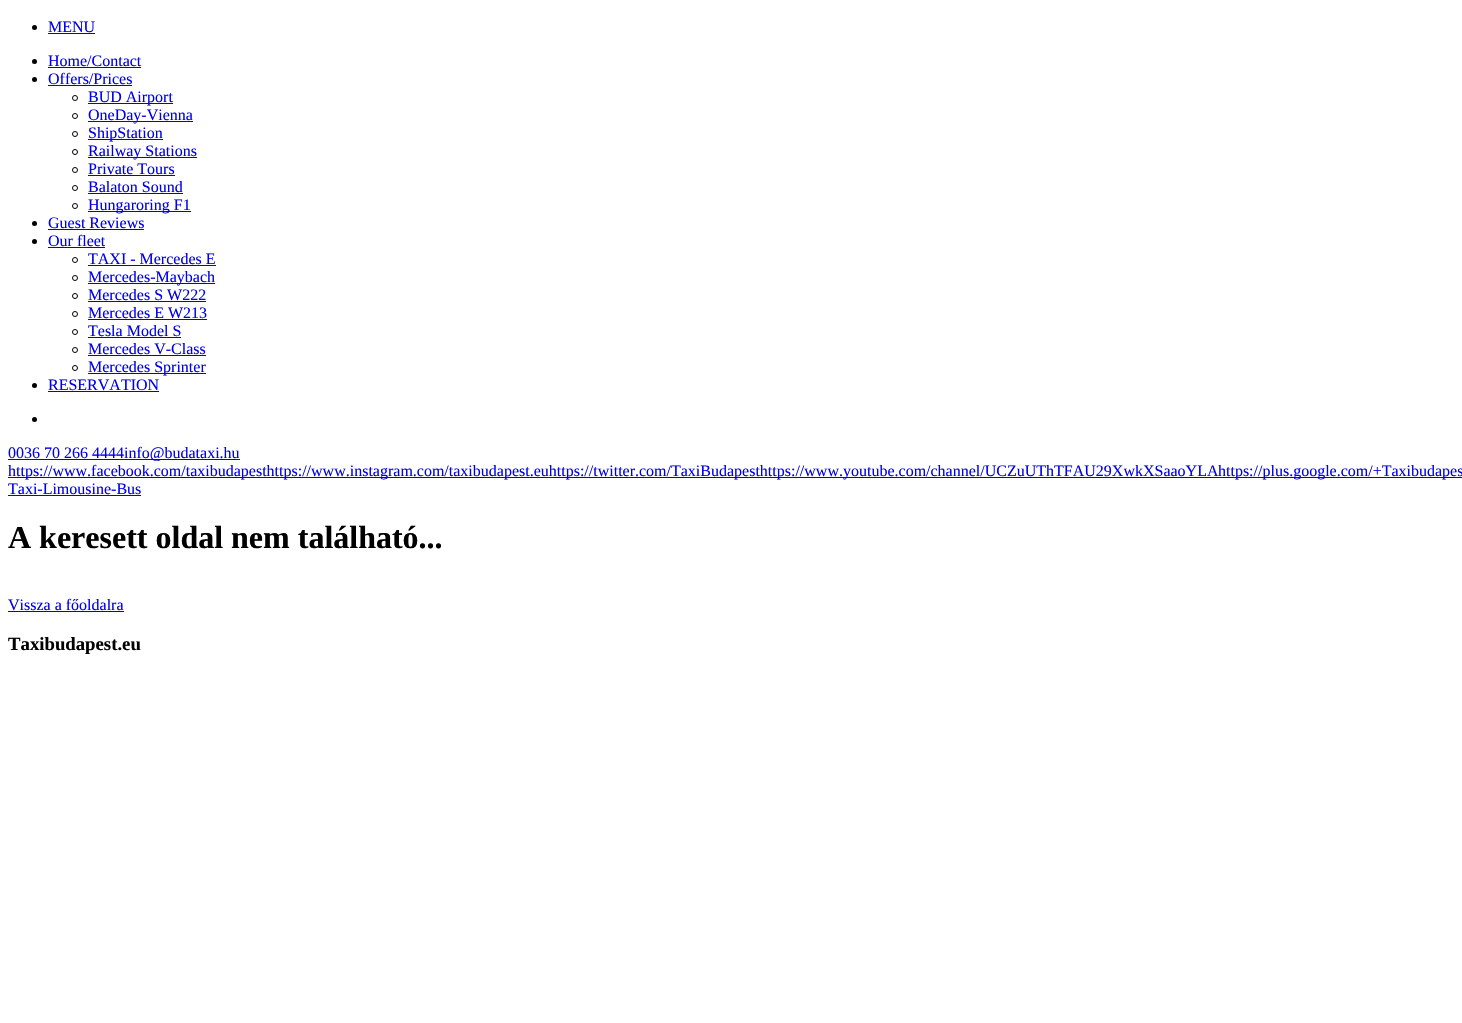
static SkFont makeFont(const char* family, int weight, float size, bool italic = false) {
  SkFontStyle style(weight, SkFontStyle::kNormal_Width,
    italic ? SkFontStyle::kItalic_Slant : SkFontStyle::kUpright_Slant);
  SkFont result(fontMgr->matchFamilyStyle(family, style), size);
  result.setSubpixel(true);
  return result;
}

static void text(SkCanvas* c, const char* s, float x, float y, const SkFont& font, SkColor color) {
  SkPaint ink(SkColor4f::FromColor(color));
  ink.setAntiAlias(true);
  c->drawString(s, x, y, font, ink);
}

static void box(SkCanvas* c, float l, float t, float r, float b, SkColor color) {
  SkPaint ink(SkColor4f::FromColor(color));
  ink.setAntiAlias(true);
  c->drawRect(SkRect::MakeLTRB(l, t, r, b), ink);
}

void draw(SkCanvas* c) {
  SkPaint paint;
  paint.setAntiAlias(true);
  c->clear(0xffffffff);
  paint.setColor(0xff000000);
  c->drawCircle(34.5f, 27.5f, 2.5f, paint);
  SkFont face1 = makeFont("Liberation Serif", 400, 16);
  text(c, "MENU", 48, 32, face1, 0xff0000ee);
  box(c, 48, 33, 95, 34, 0xff0000ee);
  c->drawCircle(34.5f, 61.5f, 2.5f, paint);
  text(c, "Home/Contact", 48, 66, face1, 0xff0000ee);
  box(c, 48, 67, 141, 68, 0xff0000ee);
  c->drawCircle(34.5f, 79.5f, 2.5f, paint);
  text(c, "Offers/Prices", 48, 84, face1, 0xff0000ee);
  box(c, 48, 85, 132, 86, 0xff0000ee);
  paint.setStyle(SkPaint::kStroke_Style);
  paint.setStrokeWidth(1);
  c->drawCircle(75, 98, 2.5f, paint);
  box(c, 88, 103, 173, 104, 0xff0000ee);
  text(c, "BUD Airport", 88, 102, face1, 0xff0000ee);
  c->drawCircle(75, 116, 2.5f, paint);
  box(c, 88, 121, 193, 122, 0xff0000ee);
  text(c, "OneDay-Vienna", 88, 120, face1, 0xff0000ee);
  c->drawCircle(75, 134, 2.5f, paint);
  box(c, 88, 139, 163, 140, 0xff0000ee);
  text(c, "ShipStation", 88, 138, face1, 0xff0000ee);
  c->drawCircle(75, 152, 2.5f, paint);
  box(c, 88, 157, 197, 158, 0xff0000ee);
  text(c, "Railway Stations", 88, 156, face1, 0xff0000ee);
  c->drawCircle(75, 170, 2.5f, paint);
  text(c, "Private Tours", 88, 174, face1, 0xff0000ee);
  box(c, 88, 175, 175, 176, 0xff0000ee);
  c->drawCircle(75, 188, 2.5f, paint);
  text(c, "Balaton Sound", 88, 192, face1, 0xff0000ee);
  box(c, 88, 193, 183, 194, 0xff0000ee);
  c->drawCircle(75, 206, 2.5f, paint);
  box(c, 88, 211, 191, 212, 0xff0000ee);
  text(c, "Hungaroring F1", 88, 210, face1, 0xff0000ee);
  paint.setStyle(SkPaint::kFill_Style);
  c->drawCircle(34.5f, 223.5f, 2.5f, paint);
  text(c, "Guest Reviews", 48, 228, face1, 0xff0000ee);
  box(c, 48, 229, 144, 230, 0xff0000ee);
  c->drawCircle(34.5f, 241.5f, 2.5f, paint);
  text(c, "Our fleet", 48, 246, face1, 0xff0000ee);
  box(c, 48, 247, 105, 248, 0xff0000ee);
  paint.setStyle(SkPaint::kStroke_Style);
  c->drawCircle(75, 260, 2.5f, paint);
  text(c, "TAXI - Mercedes E", 88, 264, face1, 0xff0000ee);
  box(c, 88, 265, 216, 266, 0xff0000ee);
  c->drawCircle(75, 278, 2.5f, paint);
  box(c, 88, 283, 215, 284, 0xff0000ee);
  text(c, "Mercedes-Maybach", 88, 282, face1, 0xff0000ee);
  c->drawCircle(75, 296, 2.5f, paint);
  text(c, "Mercedes S W222", 88, 300, face1, 0xff0000ee);
  box(c, 88, 301, 206, 302, 0xff0000ee);
  c->drawCircle(75, 314, 2.5f, paint);
  text(c, "Mercedes E W213", 88, 318, face1, 0xff0000ee);
  box(c, 88, 319, 207, 320, 0xff0000ee);
  c->drawCircle(75, 332, 2.5f, paint);
  text(c, "Tesla Model S", 88, 336, face1, 0xff0000ee);
  box(c, 88, 337, 181, 338, 0xff0000ee);
  c->drawCircle(75, 350, 2.5f, paint);
  text(c, "Mercedes V-Class", 88, 354, face1, 0xff0000ee);
  box(c, 88, 355, 206, 356, 0xff0000ee);
  c->drawCircle(75, 368, 2.5f, paint);
  box(c, 88, 373, 206, 374, 0xff0000ee);
  text(c, "Mercedes Sprinter", 88, 372, face1, 0xff0000ee);
  paint.setStyle(SkPaint::kFill_Style);
  c->drawCircle(34.5f, 385.5f, 2.5f, paint);
  text(c, "RESERVATION", 48, 390, face1, 0xff0000ee);
  box(c, 48, 391, 159, 392, 0xff0000ee);
  c->drawCircle(34.5f, 419.5f, 2.5f, paint);
  box(c, 8, 459, 240, 460, 0xff0000ee);
  text(c, "0036 70 266 4444info@budataxi.hu", 8, 458, face1, 0xff0000ee);
  box(c, 8, 477, 1218, 478, 0xff0000ee);
  text(c, "https://www.facebook.com/taxibudapesthttps://www.instagram.com/taxibudapest.euhttps://twitter.com/TaxiBudapesthttps://www.youtube.com/channel/UCZuUThTFAU29XwkXSaaoYLA", 8, 476, face1, 0xff0000ee);
  box(c, 1218, 477, 1462, 478, 0xff0000ee);
  text(c, "https://plus.google.com/+Taxibudapes", 1218, 476, face1, 0xff0000ee);
  text(c, "Taxi-Limousine-Bus", 8, 494, face1, 0xff0000ee);
  box(c, 8, 495, 141, 496, 0xff0000ee);
  SkFont face2 = makeFont("Liberation Serif", 700, 32);
  text(c, "A keresett oldal nem található...", 8, 548, face2, 0xff000000);
  text(c, "Vissza a főoldalra", 8, 610, face1, 0xff0000ee);
  box(c, 8, 611, 124, 612, 0xff0000ee);
  SkFont face3 = makeFont("Liberation Serif", 700, 18.75f);
  text(c, "Taxibudapest.eu", 8, 650, face3, 0xff000000);
}
